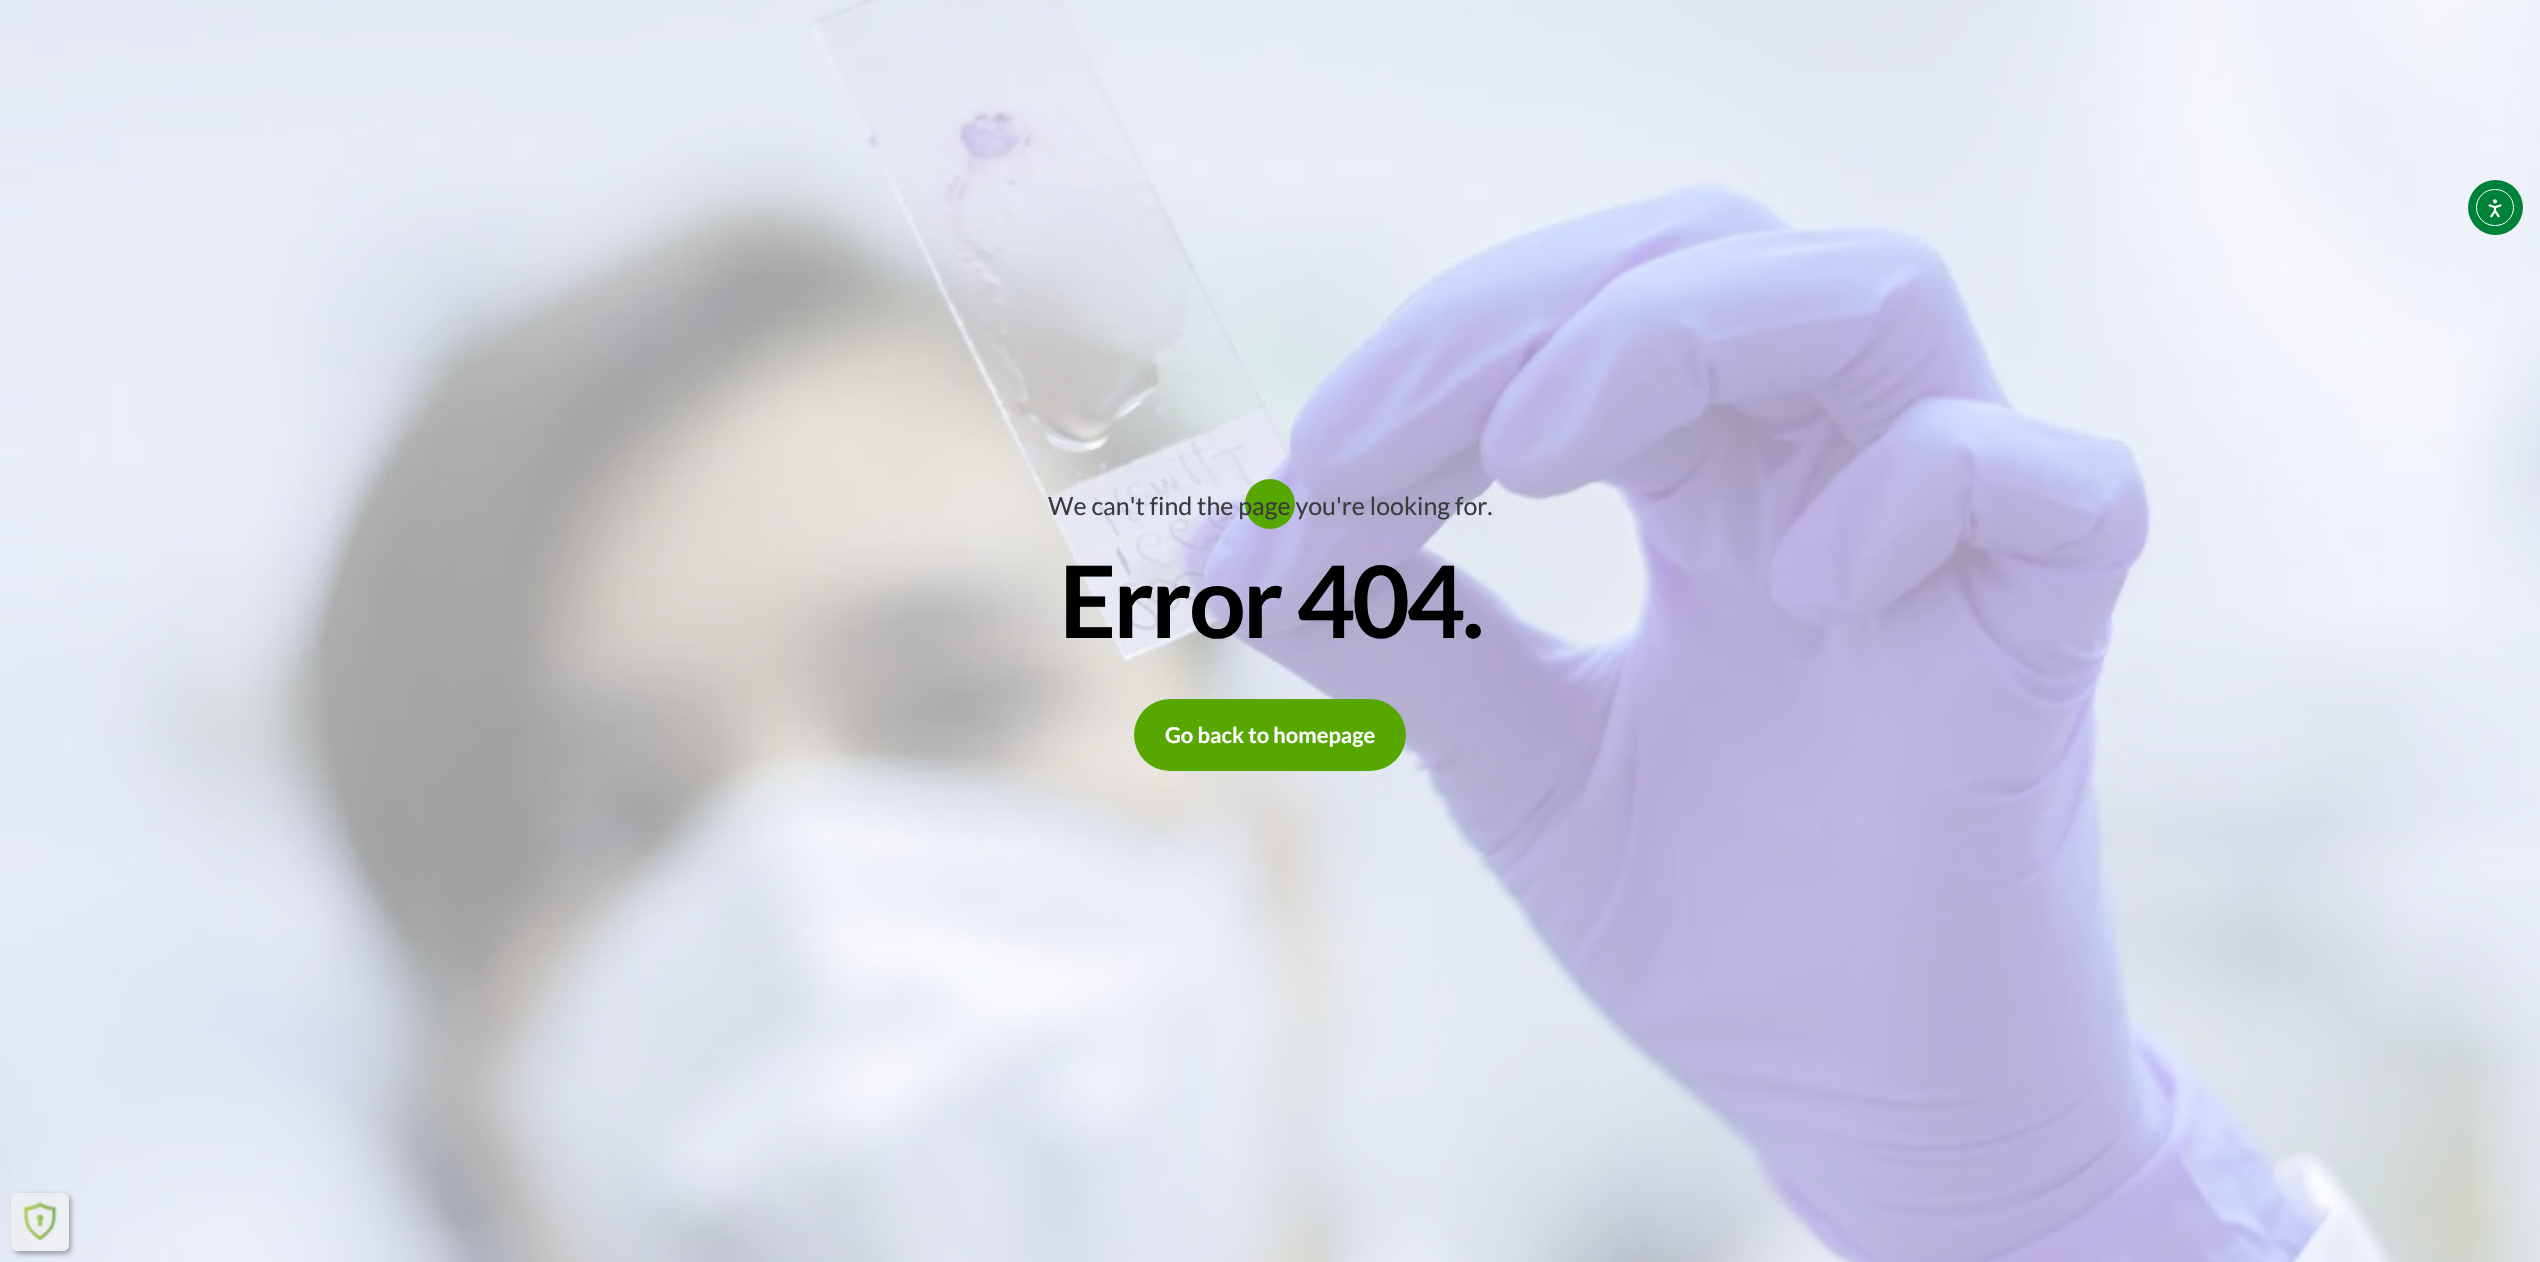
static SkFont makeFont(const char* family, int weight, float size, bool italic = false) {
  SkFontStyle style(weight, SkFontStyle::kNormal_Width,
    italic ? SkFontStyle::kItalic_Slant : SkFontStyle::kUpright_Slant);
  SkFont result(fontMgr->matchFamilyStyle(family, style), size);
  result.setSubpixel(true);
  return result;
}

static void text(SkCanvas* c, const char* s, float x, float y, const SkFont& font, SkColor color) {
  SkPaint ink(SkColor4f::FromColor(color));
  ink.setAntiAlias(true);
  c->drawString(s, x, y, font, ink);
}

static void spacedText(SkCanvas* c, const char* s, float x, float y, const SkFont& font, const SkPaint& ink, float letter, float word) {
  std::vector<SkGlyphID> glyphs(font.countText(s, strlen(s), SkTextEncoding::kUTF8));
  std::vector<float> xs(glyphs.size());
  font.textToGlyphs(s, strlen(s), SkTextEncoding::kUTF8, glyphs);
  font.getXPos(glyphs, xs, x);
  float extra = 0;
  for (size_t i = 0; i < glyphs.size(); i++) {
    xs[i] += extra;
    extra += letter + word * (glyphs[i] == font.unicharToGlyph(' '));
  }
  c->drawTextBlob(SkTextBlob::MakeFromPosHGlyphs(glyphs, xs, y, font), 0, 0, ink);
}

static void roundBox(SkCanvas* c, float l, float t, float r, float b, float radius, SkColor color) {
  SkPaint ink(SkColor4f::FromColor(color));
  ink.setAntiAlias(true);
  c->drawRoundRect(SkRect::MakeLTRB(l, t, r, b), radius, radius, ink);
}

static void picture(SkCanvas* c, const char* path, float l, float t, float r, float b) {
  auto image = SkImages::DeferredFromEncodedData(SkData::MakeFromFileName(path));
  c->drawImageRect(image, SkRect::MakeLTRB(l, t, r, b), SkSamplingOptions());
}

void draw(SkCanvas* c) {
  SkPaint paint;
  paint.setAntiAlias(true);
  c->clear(0xffffffff);
  picture(c, "img_02.png", 0, 0, 2540, 1262);
  paint.setColor(0xff008139);
  c->drawCircle(2495.5f, 207.5f, 27.5f, paint);
  paint.setStyle(SkPaint::kStroke_Style);
  paint.setStrokeWidth(1);
  paint.setColor(0xffffffff);
  c->drawRoundRect(SkRect::MakeLTRB(2476.5f, 189.5f, 2513.5f, 225.5f), 18, 18, paint);
  picture(c, "img_01.png", 2488, 199, 2502, 218);
  paint.setStyle(SkPaint::kFill_Style);
  paint.setColor(0xff56a800);
  c->drawCircle(1270, 504, 25, paint);
  SkFont face1 = makeFont("Lato", 400, 25);
  text(c, "We can't find the page you're looking for.", 1048, 515, face1, 0xff393b3c);
  SkFont face2 = makeFont("Lato", 700, 100);
  paint.setColor(0xff000000);
  spacedText(c, "Error 404.", 1059, 638, face2, paint, -3, 0);
  roundBox(c, 1134, 699, 1406, 771, 36, 0xff56a800);
  SkFont face3 = makeFont("Lato", 700, 21.9f);
  text(c, "Go back to homepage", 1165, 743, face3, 0xffffffff);
  c->save();
  c->clipPath(SkPathBuilder(SkPathFillType::kEvenOdd).moveTo(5, 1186).lineTo(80, 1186).lineTo(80, 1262).lineTo(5, 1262).close().moveTo(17, 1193).lineTo(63, 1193).cubicTo(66.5f, 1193, 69, 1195.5f, 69, 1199).lineTo(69, 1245).cubicTo(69, 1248.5f, 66.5f, 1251, 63, 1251).lineTo(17, 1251).cubicTo(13.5f, 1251, 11, 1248.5f, 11, 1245).lineTo(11, 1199).cubicTo(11, 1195.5f, 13.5f, 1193, 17, 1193).close().detach(), true);
  paint.setColor(0x54000000);
  paint.setMaskFilter(SkMaskFilter::MakeBlur(kNormal_SkBlurStyle, 2.5f));
  c->drawRoundRect(SkRect::MakeLTRB(14, 1195, 71, 1254), 6, 6, paint);
  paint.setMaskFilter(nullptr);
  c->restore();
  roundBox(c, 11, 1193, 69, 1251, 6, 0xb0f1f1f1);
  picture(c, "img_03.png", 23, 1202, 57, 1241);
}
